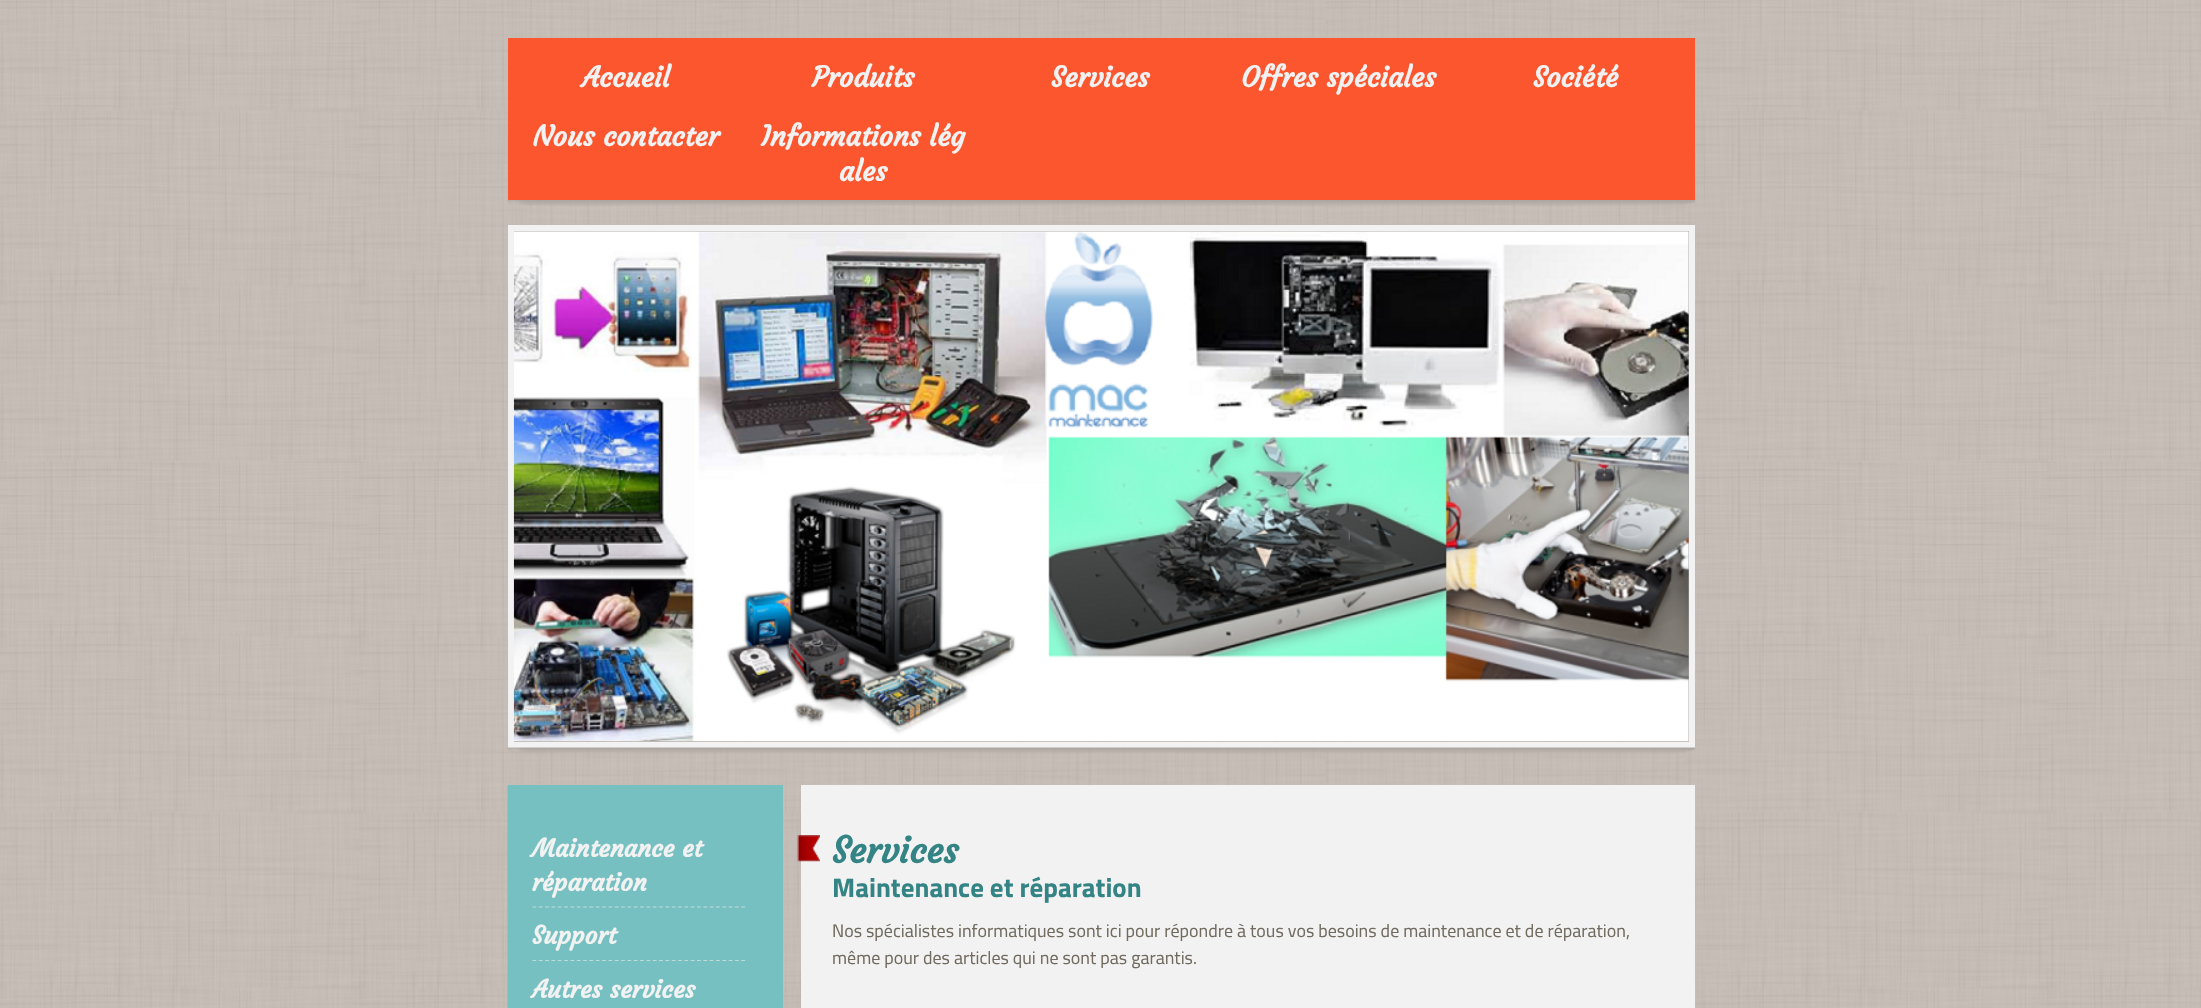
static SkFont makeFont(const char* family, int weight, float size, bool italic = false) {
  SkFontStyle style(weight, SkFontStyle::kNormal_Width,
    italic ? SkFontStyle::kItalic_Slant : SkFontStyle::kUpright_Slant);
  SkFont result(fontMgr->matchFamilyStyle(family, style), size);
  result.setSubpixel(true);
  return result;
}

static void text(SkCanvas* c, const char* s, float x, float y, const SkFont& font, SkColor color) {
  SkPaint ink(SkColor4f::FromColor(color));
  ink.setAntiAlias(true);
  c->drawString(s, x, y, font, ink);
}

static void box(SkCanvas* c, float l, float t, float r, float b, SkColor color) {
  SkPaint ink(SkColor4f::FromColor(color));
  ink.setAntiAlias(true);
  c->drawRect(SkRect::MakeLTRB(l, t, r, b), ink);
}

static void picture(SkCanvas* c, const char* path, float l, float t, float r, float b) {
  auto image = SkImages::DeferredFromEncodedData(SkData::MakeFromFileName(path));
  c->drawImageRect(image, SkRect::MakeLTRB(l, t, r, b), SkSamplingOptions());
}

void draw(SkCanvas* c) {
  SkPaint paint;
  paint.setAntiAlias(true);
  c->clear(0xffccc3bc);
  picture(c, "img_01.png", 0, 0, 2201, 1008);
  box(c, 508, 38, 1695, 200, 0xfffc562e);
  SkFont face1 = makeFont("Courgette", 700, 28);
  text(c, "Accueil", 582, 87, face1, 0xfff2f2f2);
  text(c, "Produits", 812, 87, face1, 0xfff2f2f2);
  text(c, "Services", 1051, 87, face1, 0xfff2f2f2);
  text(c, "Offres spéciales", 1241, 87, face1, 0xfff2f2f2);
  text(c, "Société", 1533, 87, face1, 0xfff2f2f2);
  text(c, "Nous contacter", 533, 146, face1, 0xfff2f2f2);
  text(c, "Informations lég", 761, 146, face1, 0xfff2f2f2);
  text(c, "ales", 839, 181, face1, 0xfff2f2f2);
  picture(c, "img_02.png", 507, 200, 1695, 206);
  paint.setStyle(SkPaint::kStroke_Style);
  paint.setStrokeWidth(6);
  paint.setColor(0xfff2f2f2);
  c->drawRect(SkRect::MakeLTRB(511, 228, 1692, 745), paint);
  box(c, 514, 231, 1689, 741, 0xffa0a0a0);
  picture(c, "img_03.png", 513, 231, 1689, 742);
  picture(c, "img_04.png", 507, 747, 1695, 754);
  picture(c, "img_05.png", 507, 785, 508, 1008);
  box(c, 508, 785, 783, 1008, 0xff76c0c1);
  paint.setStrokeWidth(1.2f);
  paint.setColor(0xffc3dadb);
  paint.setPathEffect(SkDashPathEffect::Make({{3.75f, 2.58f}}, 0));
  c->drawPath(SkPathBuilder().moveTo(532.5f, 907).lineTo(745, 907).detach(), paint);
  paint.setPathEffect(nullptr);
  SkFont face2 = makeFont("Courgette", 700, 24.75f);
  text(c, "Maintenance et", 532, 857, face2, 0xfff2f2f2);
  text(c, "réparation", 532, 891, face2, 0xfff2f2f2);
  paint.setPathEffect(SkDashPathEffect::Make({{3.75f, 2.58f}}, 0));
  c->drawPath(SkPathBuilder().moveTo(532.5f, 960.5f).lineTo(745, 960.5f).detach(), paint);
  paint.setPathEffect(nullptr);
  text(c, "Support", 532, 944, face2, 0xfff2f2f2);
  text(c, "Autres services", 532, 998, face2, 0xfff2f2f2);
  box(c, 801, 785, 1695, 1008, 0xfff2f2f2);
  picture(c, "img_06.png", 797, 835, 820, 862);
  SkFont face3 = makeFont("Courgette", 700, 36);
  text(c, "Services", 832, 863, face3, 0xff348485);
  SkFont face4 = makeFont("Titillium Web", 700, 27);
  text(c, "Maintenance et réparation", 832, 897, face4, 0xff348485);
  SkFont face5 = makeFont("Titillium Web", 400, 18);
  text(c, "Nos spécialistes informatiques sont ici pour répondre à tous vos besoins de maintenance et de réparation,", 832, 937, face5, 0xff716b5f);
  text(c, "même pour des articles qui ne sont pas garantis.", 832, 964, face5, 0xff716b5f);
}
